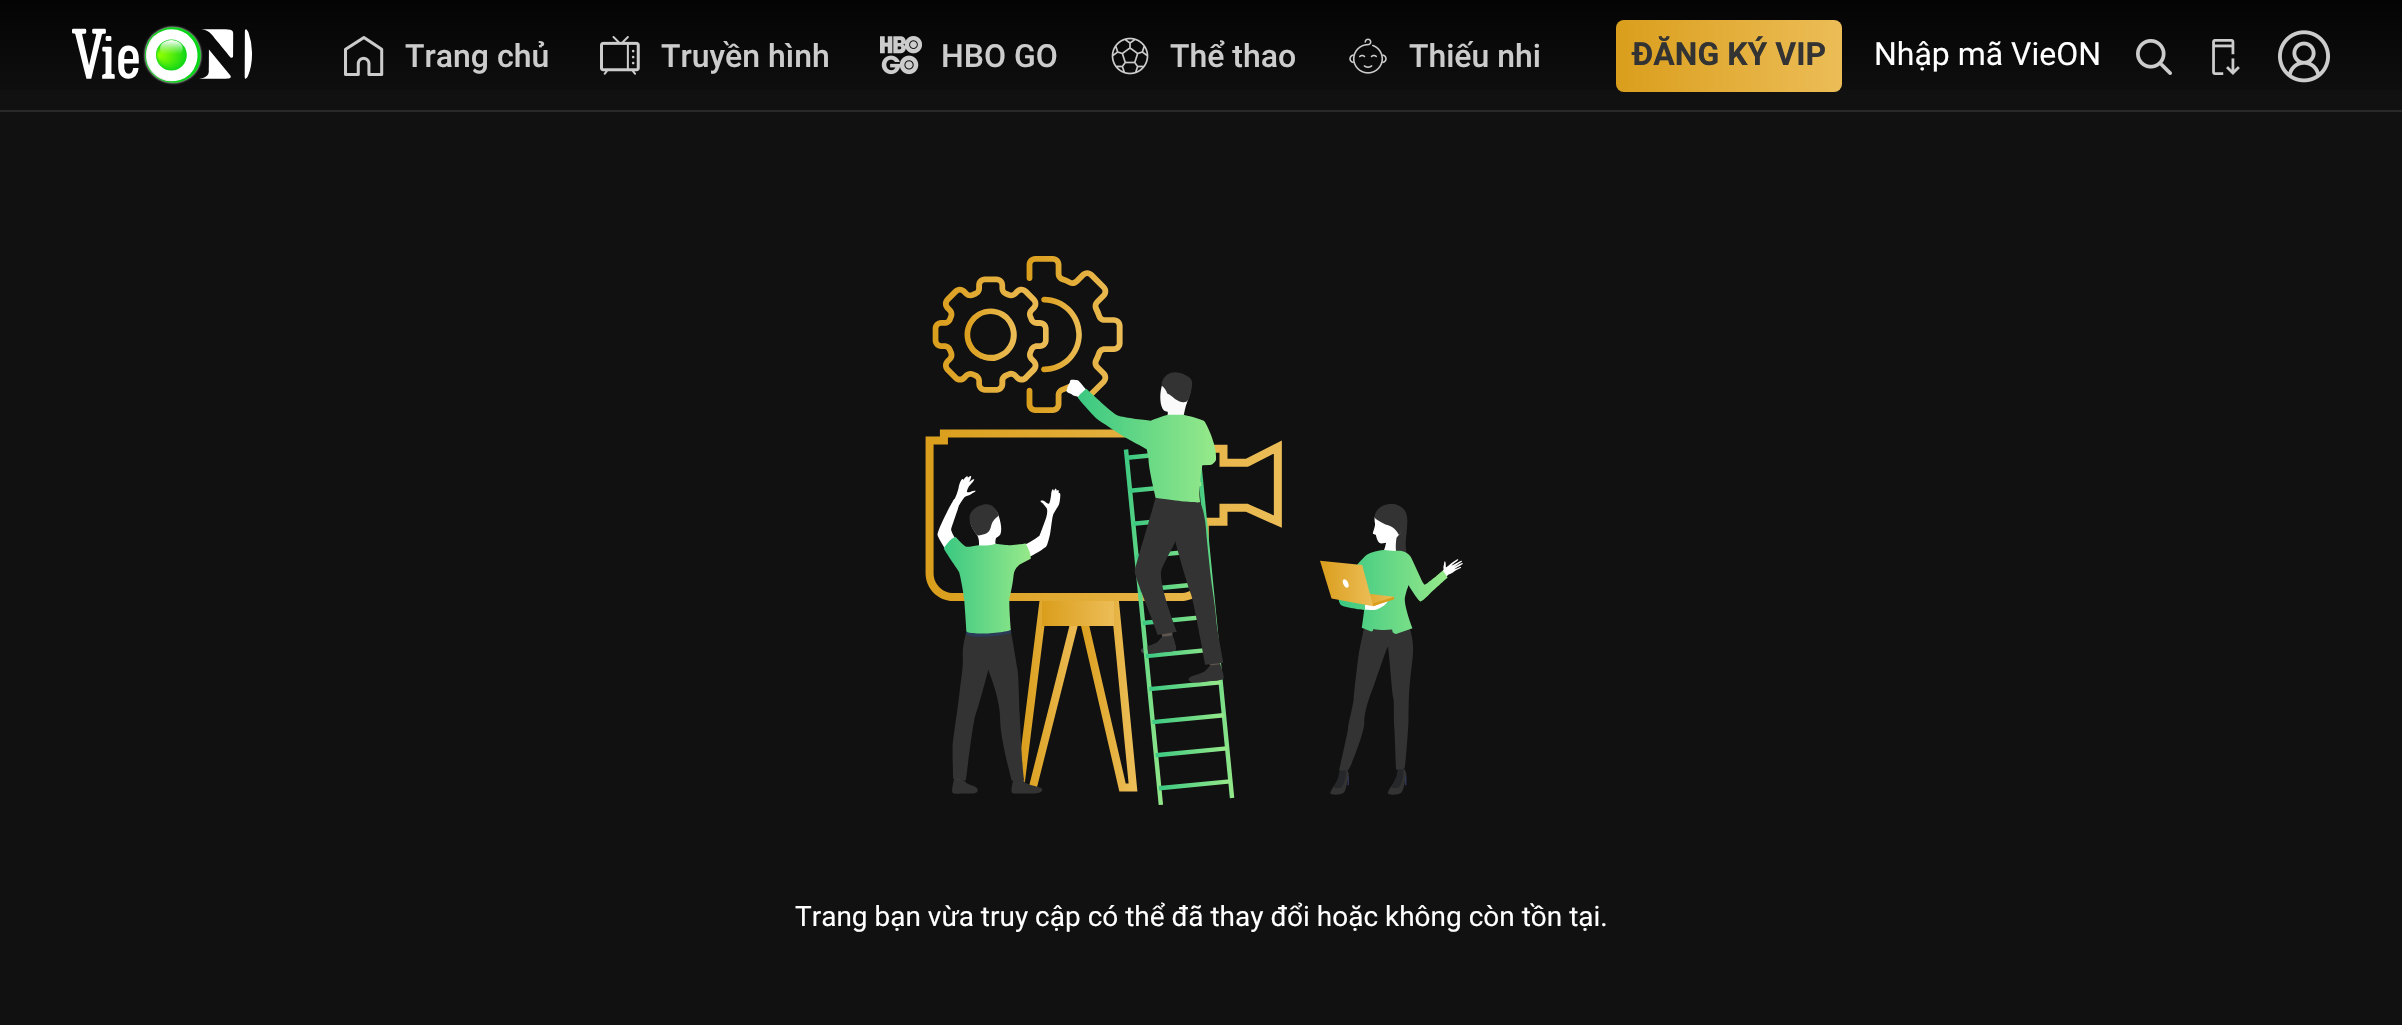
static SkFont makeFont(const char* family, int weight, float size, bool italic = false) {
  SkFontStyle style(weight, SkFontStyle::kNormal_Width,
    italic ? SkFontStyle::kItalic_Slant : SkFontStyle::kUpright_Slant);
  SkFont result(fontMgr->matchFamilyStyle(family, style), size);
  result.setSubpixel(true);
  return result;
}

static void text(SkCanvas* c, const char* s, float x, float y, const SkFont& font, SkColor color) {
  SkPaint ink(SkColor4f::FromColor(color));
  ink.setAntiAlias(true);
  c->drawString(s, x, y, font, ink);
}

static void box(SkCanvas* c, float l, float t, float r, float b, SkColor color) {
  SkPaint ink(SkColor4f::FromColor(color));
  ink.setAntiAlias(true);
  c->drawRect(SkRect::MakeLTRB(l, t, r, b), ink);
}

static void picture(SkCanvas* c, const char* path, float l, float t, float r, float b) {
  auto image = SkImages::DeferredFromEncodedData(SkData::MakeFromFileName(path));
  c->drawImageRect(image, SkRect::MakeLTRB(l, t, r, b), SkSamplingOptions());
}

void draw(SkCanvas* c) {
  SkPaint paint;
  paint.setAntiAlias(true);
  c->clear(0xff111111);
  {
    const SkColor colors[] = {0xff111111, 0xff040404};
    const float stops[] = {0, 1};
    const SkPoint ends[] = {{1201, 112}, {1201, 0}};
    paint.setShader(SkGradientShader::MakeLinear(ends, colors, stops, 2, SkTileMode::kClamp));
    paint.setAlpha(255);
  }
  c->drawRect(SkRect::MakeLTRB(0, 0, 2402, 90), paint);
  box(c, 0, 110, 2402, 112, 0xff292929);
  picture(c, "img_01.png", 72, 25, 252, 85);
  picture(c, "img_02.png", 344, 36, 384, 76);
  SkFont face1 = makeFont("Roboto", 500, 32);
  text(c, "Trang chủ", 405, 67, face1, 0xffcccccc);
  picture(c, "img_03.png", 600, 36, 640, 75);
  text(c, "Truyền hình", 661, 67, face1, 0xffcccccc);
  picture(c, "img_04.png", 880, 36, 922, 75);
  text(c, "HBO GO", 941, 67, face1, 0xffcccccc);
  picture(c, "img_05.png", 1111, 37, 1149, 75);
  text(c, "Thể thao", 1170, 67, face1, 0xffcccccc);
  picture(c, "img_06.png", 1349, 38, 1387, 74);
  text(c, "Thiếu nhi", 1409, 67, face1, 0xffcccccc);
  {
    const SkColor colors[] = {0xffda9e1c, 0xffecbd57};
    const float stops[] = {0, 1};
    const SkPoint ends[] = {{1616, 56}, {1842, 56}};
    paint.setShader(SkGradientShader::MakeLinear(ends, colors, stops, 2, SkTileMode::kClamp));
    paint.setAlpha(255);
  }
  c->drawRoundRect(SkRect::MakeLTRB(1616, 20, 1842, 92), 8, 8, paint);
  SkFont face2 = makeFont("Roboto", 700, 32);
  text(c, "ĐĂNG KÝ VIP", 1632, 65, face2, 0xff333333);
  SkFont face3 = makeFont("Roboto", 400, 32);
  text(c, "Nhập mã VieON", 1874, 65, face3, 0xffffffff);
  picture(c, "img_07.png", 2136, 39, 2172, 75);
  picture(c, "img_08.png", 2212, 39, 2240, 75);
  picture(c, "img_09.png", 2278, 30, 2330, 83);
  picture(c, "img_10.png", 925, 256, 1463, 805);
  SkFont face4 = makeFont("Roboto", 400, 28);
  text(c, "Trang bạn vừa truy cập có thể đã thay đổi hoặc không còn tồn tại.", 795, 926, face4, 0xffffffff);
}
